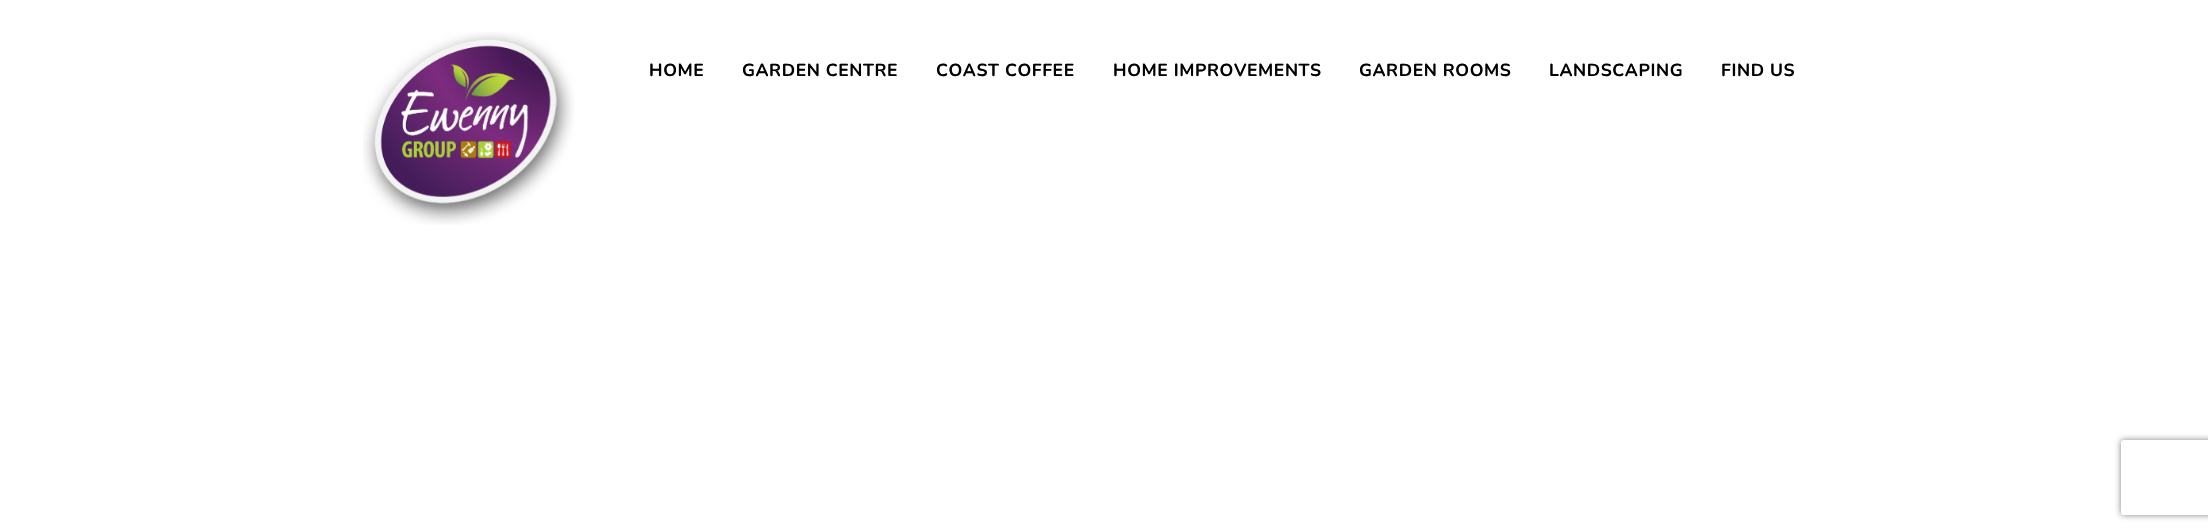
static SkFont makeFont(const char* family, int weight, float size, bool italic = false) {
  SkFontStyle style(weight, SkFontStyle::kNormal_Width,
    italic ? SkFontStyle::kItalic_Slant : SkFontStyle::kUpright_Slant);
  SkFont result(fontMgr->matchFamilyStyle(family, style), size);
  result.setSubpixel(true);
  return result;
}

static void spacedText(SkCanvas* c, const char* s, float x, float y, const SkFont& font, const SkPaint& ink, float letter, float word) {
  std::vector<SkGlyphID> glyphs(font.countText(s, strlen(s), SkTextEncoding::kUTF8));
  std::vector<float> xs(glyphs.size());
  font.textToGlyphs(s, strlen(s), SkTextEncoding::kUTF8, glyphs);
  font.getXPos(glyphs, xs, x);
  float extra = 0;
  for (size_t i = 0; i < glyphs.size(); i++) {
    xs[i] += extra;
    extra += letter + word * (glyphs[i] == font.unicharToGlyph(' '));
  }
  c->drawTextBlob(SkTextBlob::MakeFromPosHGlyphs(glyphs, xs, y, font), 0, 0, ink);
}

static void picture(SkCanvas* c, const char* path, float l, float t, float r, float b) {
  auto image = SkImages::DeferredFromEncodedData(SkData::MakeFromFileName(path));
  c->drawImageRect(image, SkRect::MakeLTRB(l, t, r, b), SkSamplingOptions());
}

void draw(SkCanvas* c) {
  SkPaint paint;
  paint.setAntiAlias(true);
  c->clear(0xffffffff);
  picture(c, "img_01.png", 363, 32, 574, 225);
  SkFont face1 = makeFont("Nunito", 700, 17.5f);
  paint.setColor(0xff000000);
  spacedText(c, "HOME", 649, 76, face1, paint, 0.6f, 0);
  spacedText(c, "GARDEN CENTRE", 742, 76, face1, paint, 0.6f, 0);
  spacedText(c, "COAST COFFEE", 936, 76, face1, paint, 0.6f, 0);
  spacedText(c, "HOME IMPROVEMENTS", 1113, 76, face1, paint, 0.6f, 0);
  spacedText(c, "GARDEN ROOMS", 1359, 76, face1, paint, 0.6f, 0);
  spacedText(c, "LANDSCAPING", 1549, 76, face1, paint, 0.6f, 0);
  spacedText(c, "FIND US", 1721, 76, face1, paint, 0.6f, 0);
  c->save();
  c->clipPath(SkPathBuilder(SkPathFillType::kEvenOdd).moveTo(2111, 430).lineTo(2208, 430).lineTo(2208, 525).lineTo(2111, 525).close().moveTo(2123.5f, 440).lineTo(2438.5f, 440).cubicTo(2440, 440, 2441, 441, 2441, 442.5f).lineTo(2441, 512.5f).cubicTo(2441, 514, 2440, 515, 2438.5f, 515).lineTo(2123.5f, 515).cubicTo(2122, 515, 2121, 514, 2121, 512.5f).lineTo(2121, 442.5f).cubicTo(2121, 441, 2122, 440, 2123.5f, 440).close().detach(), true);
  paint.setColor(0xff808080);
  paint.setMaskFilter(SkMaskFilter::MakeBlur(kNormal_SkBlurStyle, 3));
  c->drawRoundRect(SkRect::MakeLTRB(2121, 440, 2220, 515), 2.5f, 2.5f, paint);
  paint.setMaskFilter(nullptr);
  c->restore();
}
